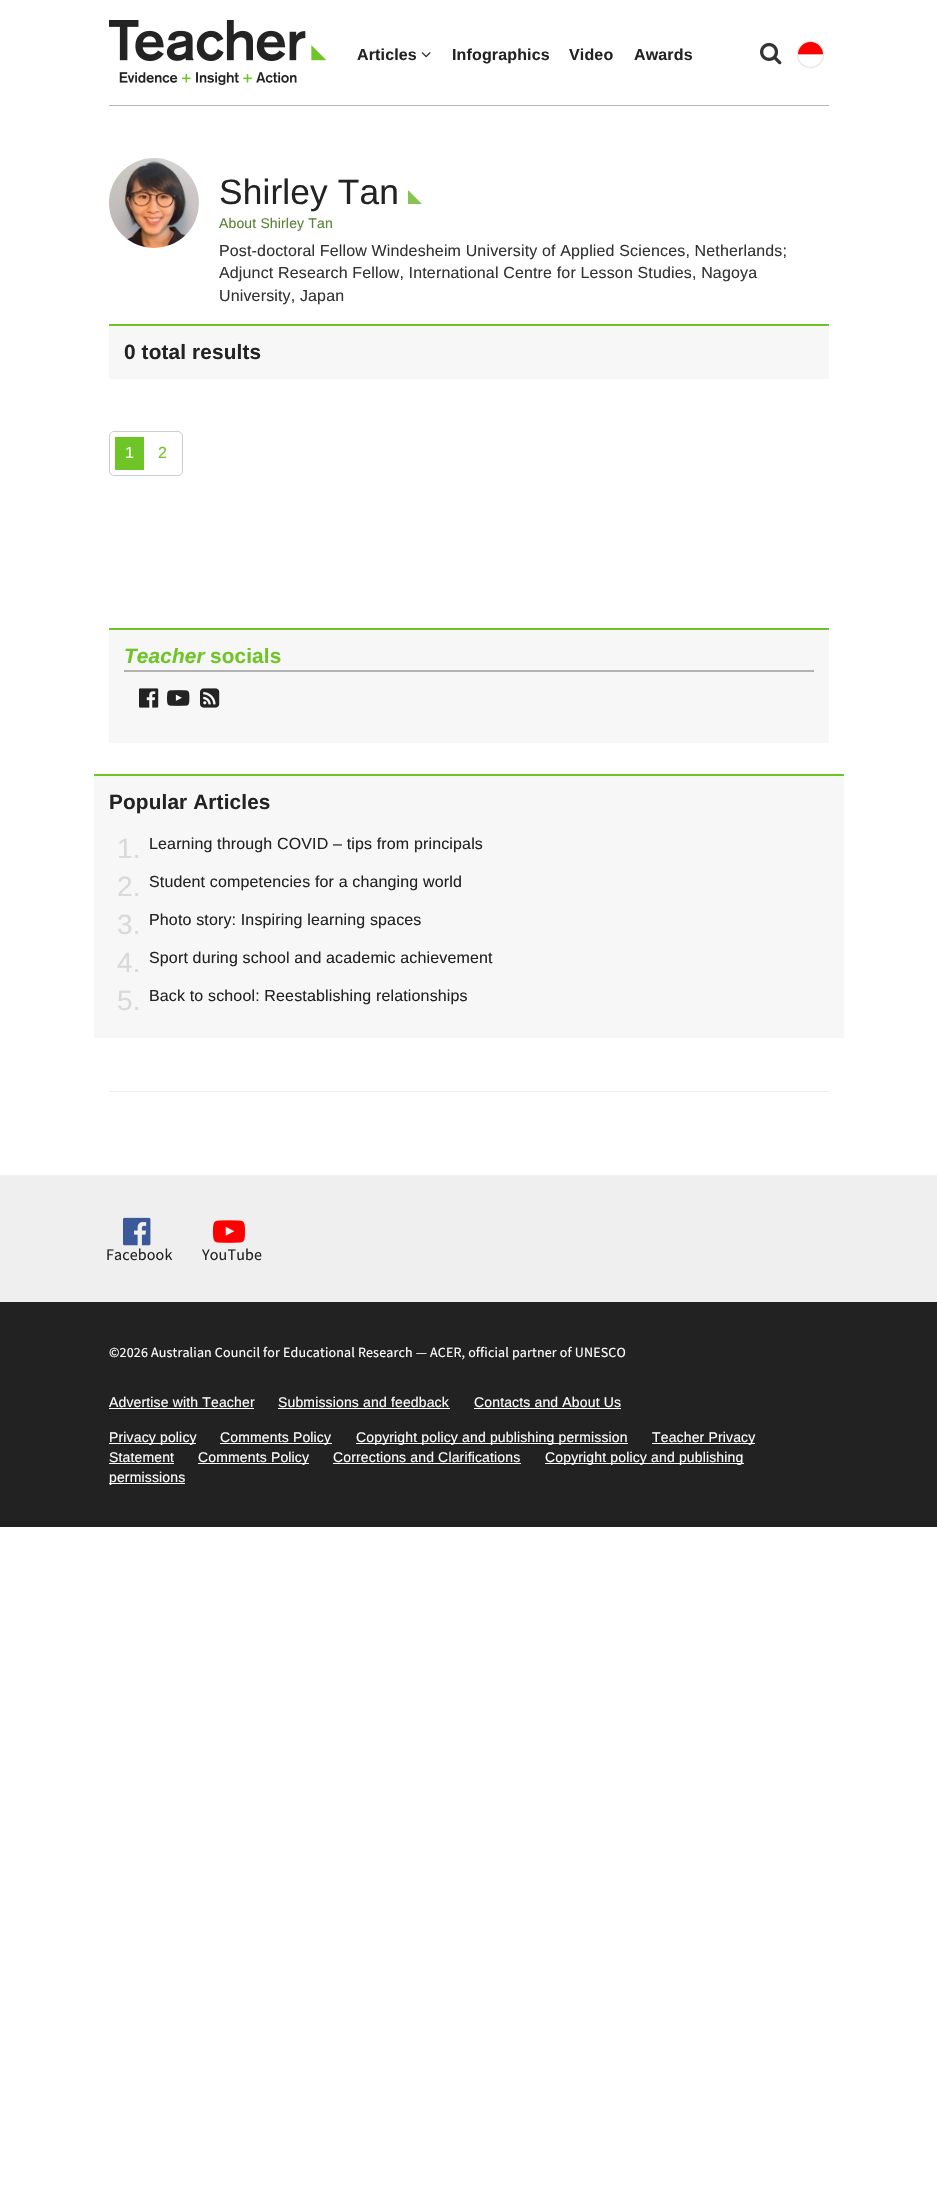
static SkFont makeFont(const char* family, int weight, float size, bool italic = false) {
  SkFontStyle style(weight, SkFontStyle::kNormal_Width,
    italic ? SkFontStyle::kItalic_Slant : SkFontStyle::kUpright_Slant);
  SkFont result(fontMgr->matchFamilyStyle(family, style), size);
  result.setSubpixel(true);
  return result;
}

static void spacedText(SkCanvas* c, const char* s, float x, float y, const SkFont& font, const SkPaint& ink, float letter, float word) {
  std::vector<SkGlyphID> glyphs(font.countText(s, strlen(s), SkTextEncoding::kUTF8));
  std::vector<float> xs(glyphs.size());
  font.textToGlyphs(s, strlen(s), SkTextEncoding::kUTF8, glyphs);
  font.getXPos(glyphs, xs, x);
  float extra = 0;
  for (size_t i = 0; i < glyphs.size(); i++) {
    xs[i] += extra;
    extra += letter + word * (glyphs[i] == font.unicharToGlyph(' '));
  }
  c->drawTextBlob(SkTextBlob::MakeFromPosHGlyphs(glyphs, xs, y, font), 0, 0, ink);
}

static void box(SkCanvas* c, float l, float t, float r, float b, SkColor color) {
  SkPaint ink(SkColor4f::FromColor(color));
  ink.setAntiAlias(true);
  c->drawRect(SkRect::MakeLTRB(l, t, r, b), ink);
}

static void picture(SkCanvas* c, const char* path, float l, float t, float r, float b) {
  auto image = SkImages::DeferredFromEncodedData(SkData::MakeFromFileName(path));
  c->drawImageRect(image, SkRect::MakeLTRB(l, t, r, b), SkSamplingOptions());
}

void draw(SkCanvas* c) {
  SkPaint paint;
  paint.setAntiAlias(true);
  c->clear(0xffffffff);
  box(c, 109, 105, 829, 106, 0xffb7b7b7);
  picture(c, "img_01.png", 109, 20, 326, 85);
  picture(c, "img_02.png", 760, 42, 782, 65);
  picture(c, "img_03.png", 797, 40, 824, 69);
  SkFont face1 = makeFont("Liberation Sans", 700, 16);
  paint.setColor(0xff232323);
  spacedText(c, "Articles", 357, 60, face1, paint, 0.15f, 0);
  picture(c, "img_04.png", 421, 52, 431, 58);
  spacedText(c, "Infographics", 452, 60, face1, paint, 0.15f, 0);
  spacedText(c, "Video", 569, 60, face1, paint, 0.15f, 0);
  spacedText(c, "Awards", 634, 60, face1, paint, 0.15f, 0);
  picture(c, "img_05.png", 109, 158, 199, 248);
  SkFont face2 = makeFont("Liberation Sans", 400, 35.25f);
  spacedText(c, "Shirley Tan", 219, 204, face2, paint, 0.15f, 0);
  paint.setColor(0xff86c551);
  c->drawPath(SkPathBuilder().moveTo(408, 190).lineTo(422, 204).lineTo(408, 204).close().detach(), paint);
  SkFont face3 = makeFont("Liberation Sans", 400, 14);
  paint.setColor(0xff578135);
  spacedText(c, "About Shirley Tan", 219, 228, face3, paint, 0.15f, 0);
  SkFont face4 = makeFont("Liberation Sans", 400, 16);
  paint.setColor(0xff333333);
  spacedText(c, "Post-doctoral Fellow Windesheim University of Applied Sciences, Netherlands;", 219, 256, face4, paint, 0.15f, 0);
  spacedText(c, "Adjunct Research Fellow, International Centre for Lesson Studies, Nagoya", 219, 278, face4, paint, 0.15f, 0);
  spacedText(c, "University, Japan", 219, 301, face4, paint, 0.15f, 0);
  box(c, 109, 326, 829, 379, 0xfff7f7f7);
  box(c, 109, 324, 829, 326, 0xff6fc527);
  SkFont face5 = makeFont("Liberation Sans", 700, 20.75f);
  paint.setColor(0xff232323);
  spacedText(c, "0 total results", 124, 359, face5, paint, 0.15f, 0);
  paint.setStyle(SkPaint::kStroke_Style);
  paint.setStrokeWidth(1);
  paint.setColor(0xffcccccc);
  c->drawRoundRect(SkRect::MakeLTRB(109.5f, 431.5f, 182.5f, 475.5f), 4.5f, 4.5f, paint);
  box(c, 115, 437, 144, 470, 0xff6fc527);
  paint.setStyle(SkPaint::kFill_Style);
  paint.setColor(0xffffffff);
  spacedText(c, "1", 125, 458, face4, paint, 0.15f, 0);
  paint.setColor(0xff6fc527);
  spacedText(c, "2", 158, 458, face4, paint, 0.15f, 0);
  box(c, 109, 630, 829, 743, 0xfff7f7f7);
  box(c, 109, 628, 829, 630, 0xff6fc527);
  SkFont face6 = makeFont("Liberation Sans", 700, 20.75f, true);
  spacedText(c, "Teacher", 124, 663, face6, paint, 0.15f, 0);
  spacedText(c, "socials", 210, 663, face5, paint, 0.15f, 0);
  box(c, 124, 670, 814, 672, 0xffb2b2b2);
  picture(c, "img_06.png", 139, 688, 159, 708);
  picture(c, "img_07.png", 167, 690, 190, 706);
  picture(c, "img_08.png", 200, 688, 220, 708);
  box(c, 94, 776, 844, 1038, 0xfff7f7f7);
  box(c, 94, 774, 844, 776, 0xff6fc527);
  paint.setColor(0xff232323);
  spacedText(c, "Popular Articles", 109, 809, face5, paint, 0.15f, 0);
  SkFont face7 = makeFont("Liberation Sans", 400, 28);
  paint.setColor(0xffd9d9d8);
  spacedText(c, "1.", 117, 858, face7, paint, 0.15f, 0);
  paint.setColor(0xff232323);
  spacedText(c, "Learning through COVID – tips from principals", 149, 849, face4, paint, 0.15f, 0);
  paint.setColor(0xffd9d9d8);
  spacedText(c, "2.", 117, 896, face7, paint, 0.15f, 0);
  paint.setColor(0xff232323);
  spacedText(c, "Student competencies for a changing world", 149, 887, face4, paint, 0.15f, 0);
  paint.setColor(0xffd9d9d8);
  spacedText(c, "3.", 117, 934, face7, paint, 0.15f, 0);
  paint.setColor(0xff232323);
  spacedText(c, "Photo story: Inspiring learning spaces", 149, 925, face4, paint, 0.15f, 0);
  paint.setColor(0xffd9d9d8);
  spacedText(c, "4.", 117, 972, face7, paint, 0.15f, 0);
  paint.setColor(0xff232323);
  spacedText(c, "Sport during school and academic achievement", 149, 963, face4, paint, 0.15f, 0);
  paint.setColor(0xffd9d9d8);
  spacedText(c, "5.", 117, 1010, face7, paint, 0.15f, 0);
  paint.setColor(0xff232323);
  spacedText(c, "Back to school: Reestablishing relationships", 149, 1001, face4, paint, 0.15f, 0);
  box(c, 109, 1091, 829, 1092, 0xffeeeeee);
  box(c, 0, 1175, 937, 1302, 0xffefefef);
  picture(c, "img_09.png", 123, 1217, 151, 1246);
  SkFont face8 = makeFont("Source Sans Pro", 400, 16);
  spacedText(c, "Facebook", 106, 1260, face8, paint, 0.15f, 0);
  picture(c, "img_10.png", 213, 1220, 245, 1243);
  spacedText(c, "YouTube", 202, 1260, face8, paint, 0.15f, 0);
  box(c, 0, 1302, 937, 1527, 0xff222222);
  SkFont face9 = makeFont("Source Sans Pro", 400, 14);
  paint.setColor(0xffffffff);
  spacedText(c, "©2026 Australian Council for Educational Research — ACER, official partner of UNESCO", 109, 1357, face9, paint, 0.15f, 0);
  spacedText(c, "Advertise with Teacher", 109, 1407, face3, paint, 0.15f, 0);
  box(c, 109, 1408, 254, 1409, 0xffffffff);
  spacedText(c, "Submissions and feedback", 278, 1407, face3, paint, 0.15f, 0);
  box(c, 278, 1408, 450, 1409, 0xffffffff);
  spacedText(c, "Contacts and About Us", 474, 1407, face3, paint, 0.15f, 0);
  box(c, 474, 1408, 621, 1409, 0xffffffff);
  box(c, 109, 1443, 196, 1444, 0xffffffff);
  spacedText(c, "Privacy policy", 109, 1442, face3, paint, 0.15f, 0);
  box(c, 220, 1443, 332, 1444, 0xffffffff);
  spacedText(c, "Comments Policy", 220, 1442, face3, paint, 0.15f, 0);
  box(c, 356, 1443, 628, 1444, 0xffffffff);
  spacedText(c, "Copyright policy and publishing permission", 356, 1442, face3, paint, 0.15f, 0);
  box(c, 652, 1443, 755, 1444, 0xffffffff);
  spacedText(c, "Teacher Privacy", 652, 1442, face3, paint, 0.15f, 0);
  spacedText(c, "Statement", 109, 1462, face3, paint, 0.15f, 0);
  box(c, 109, 1463, 174, 1464, 0xffffffff);
  box(c, 198, 1463, 309, 1464, 0xffffffff);
  spacedText(c, "Comments Policy", 198, 1462, face3, paint, 0.15f, 0);
  spacedText(c, "Corrections and Clarifications", 333, 1462, face3, paint, 0.15f, 0);
  box(c, 333, 1463, 521, 1464, 0xffffffff);
  box(c, 545, 1463, 744, 1464, 0xffffffff);
  spacedText(c, "Copyright policy and publishing", 545, 1462, face3, paint, 0.15f, 0);
  box(c, 109, 1483, 185, 1484, 0xffffffff);
  spacedText(c, "permissions", 109, 1482, face3, paint, 0.15f, 0);
}
